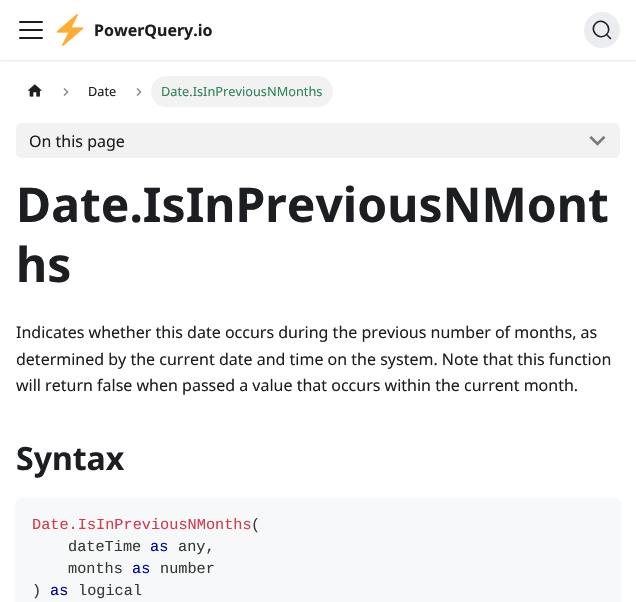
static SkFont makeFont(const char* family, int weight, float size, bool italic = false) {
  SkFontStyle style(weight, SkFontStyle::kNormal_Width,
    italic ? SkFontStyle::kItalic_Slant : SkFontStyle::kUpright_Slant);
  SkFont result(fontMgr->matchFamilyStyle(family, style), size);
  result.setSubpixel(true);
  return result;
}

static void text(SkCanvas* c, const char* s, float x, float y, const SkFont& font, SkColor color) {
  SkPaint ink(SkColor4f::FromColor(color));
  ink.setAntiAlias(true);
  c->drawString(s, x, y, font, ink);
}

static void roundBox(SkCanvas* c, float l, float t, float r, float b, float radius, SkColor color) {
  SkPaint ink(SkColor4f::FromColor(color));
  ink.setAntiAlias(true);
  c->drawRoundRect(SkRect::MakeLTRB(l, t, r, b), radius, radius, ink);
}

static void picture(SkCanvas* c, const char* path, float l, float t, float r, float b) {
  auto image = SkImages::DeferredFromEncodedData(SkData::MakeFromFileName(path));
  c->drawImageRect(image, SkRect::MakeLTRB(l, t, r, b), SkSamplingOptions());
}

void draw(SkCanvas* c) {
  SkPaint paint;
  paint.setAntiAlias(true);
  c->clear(0xffffffff);
  c->save();
  c->clipRect(SkRect::MakeLTRB(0, 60, 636, 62));
  paint.setColor(0x1a000000);
  paint.setMaskFilter(SkMaskFilter::MakeBlur(kNormal_SkBlurStyle, 1));
  c->drawRect(SkRect::MakeLTRB(0, 1, 636, 61), paint);
  paint.setMaskFilter(nullptr);
  c->restore();
  picture(c, "img_01.png", 19, 21, 43, 39);
  picture(c, "img_02.png", 56, 14, 84, 46);
  SkFont face1 = makeFont("Noto Sans", 700, 16);
  text(c, "PowerQuery.io", 94, 36, face1, 0xff1c1e21);
  paint.setColor(0xffebedf0);
  c->drawCircle(602, 30, 18, paint);
  paint.setStyle(SkPaint::kStroke_Style);
  paint.setStrokeWidth(1.6f);
  paint.setStrokeCap(SkPaint::kRound_Cap);
  paint.setStrokeJoin(SkPaint::kRound_Join);
  paint.setColor(0xff1c1e21);
  c->drawPath(SkPathBuilder().moveTo(606.5f, 34.5f).lineTo(610.5f, 38.5f).lineTo(606.5f, 34.5f).cubicTo(599.5f, 41.5f, 588.5f, 30.5f, 595.5f, 23.5f).cubicTo(602.5f, 16.5f, 613.5f, 27.5f, 606.5f, 34.5f).close().detach(), paint);
  picture(c, "img_03.png", 28, 84, 42, 97);
  picture(c, "img_04.png", 63, 88, 69, 96);
  SkFont face2 = makeFont("Noto Sans", 400, 12.75f);
  text(c, "Date", 88, 96, face2, 0xff1c1e21);
  picture(c, "img_04.png", 136, 88, 142, 96);
  roundBox(c, 151, 76, 333, 107, 15.5f, 0xfff2f2f2);
  text(c, "Date.IsInPreviousNMonths", 161, 96, face2, 0xff2e8555);
  roundBox(c, 16, 123, 620, 158, 6, 0xfff2f2f2);
  SkFont face3 = makeFont("Noto Sans", 400, 16);
  text(c, "On this page", 29, 147, face3, 0xff1c1e21);
  picture(c, "img_05.png", 589, 136, 606, 146);
  SkFont face4 = makeFont("Noto Sans", 700, 48);
  text(c, "Date.IsInPreviousNMont", 16, 222, face4, 0xff1c1e21);
  text(c, "hs", 16, 282, face4, 0xff1c1e21);
  text(c, "Indicates whether this date occurs during the previous number of months, as", 16, 338, face3, 0xff1c1e21);
  text(c, "determined by the current date and time on the system. Note that this function", 16, 365, face3, 0xff1c1e21);
  text(c, "will return false when passed a value that occurs within the current month.", 16, 391, face3, 0xff1c1e21);
  SkFont face5 = makeFont("Noto Sans", 700, 32);
  text(c, "Syntax", 16, 470, face5, 0xff1c1e21);
  paint.setStyle(SkPaint::kFill_Style);
  paint.setColor(0x1a000000);
  paint.setMaskFilter(SkMaskFilter::MakeBlur(kNormal_SkBlurStyle, 1));
  c->drawRoundRect(SkRect::MakeLTRB(16, 499, 620, 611), 6, 6, paint);
  paint.setMaskFilter(nullptr);
  roundBox(c, 16, 498, 620, 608, 6, 0xfff6f8fa);
  SkFont face6 = makeFont("Liberation Mono", 400, 15.25f);
  text(c, "Date.IsInPreviousNMonths", 32, 529, face6, 0xffd73a49);
  text(c, "(", 251, 529, face6, 0xff393a34);
  text(c, "dateTime", 68, 551, face6, 0xff393a34);
  text(c, "as", 150, 551, face6, 0xff00009f);
  text(c, "any,", 178, 551, face6, 0xff393a34);
  text(c, "months", 68, 573, face6, 0xff393a34);
  text(c, "as", 132, 573, face6, 0xff00009f);
  text(c, "number", 160, 573, face6, 0xff393a34);
  text(c, ")", 32, 595, face6, 0xff393a34);
  text(c, "as", 50, 595, face6, 0xff00009f);
  text(c, "logical", 78, 595, face6, 0xff393a34);
}
